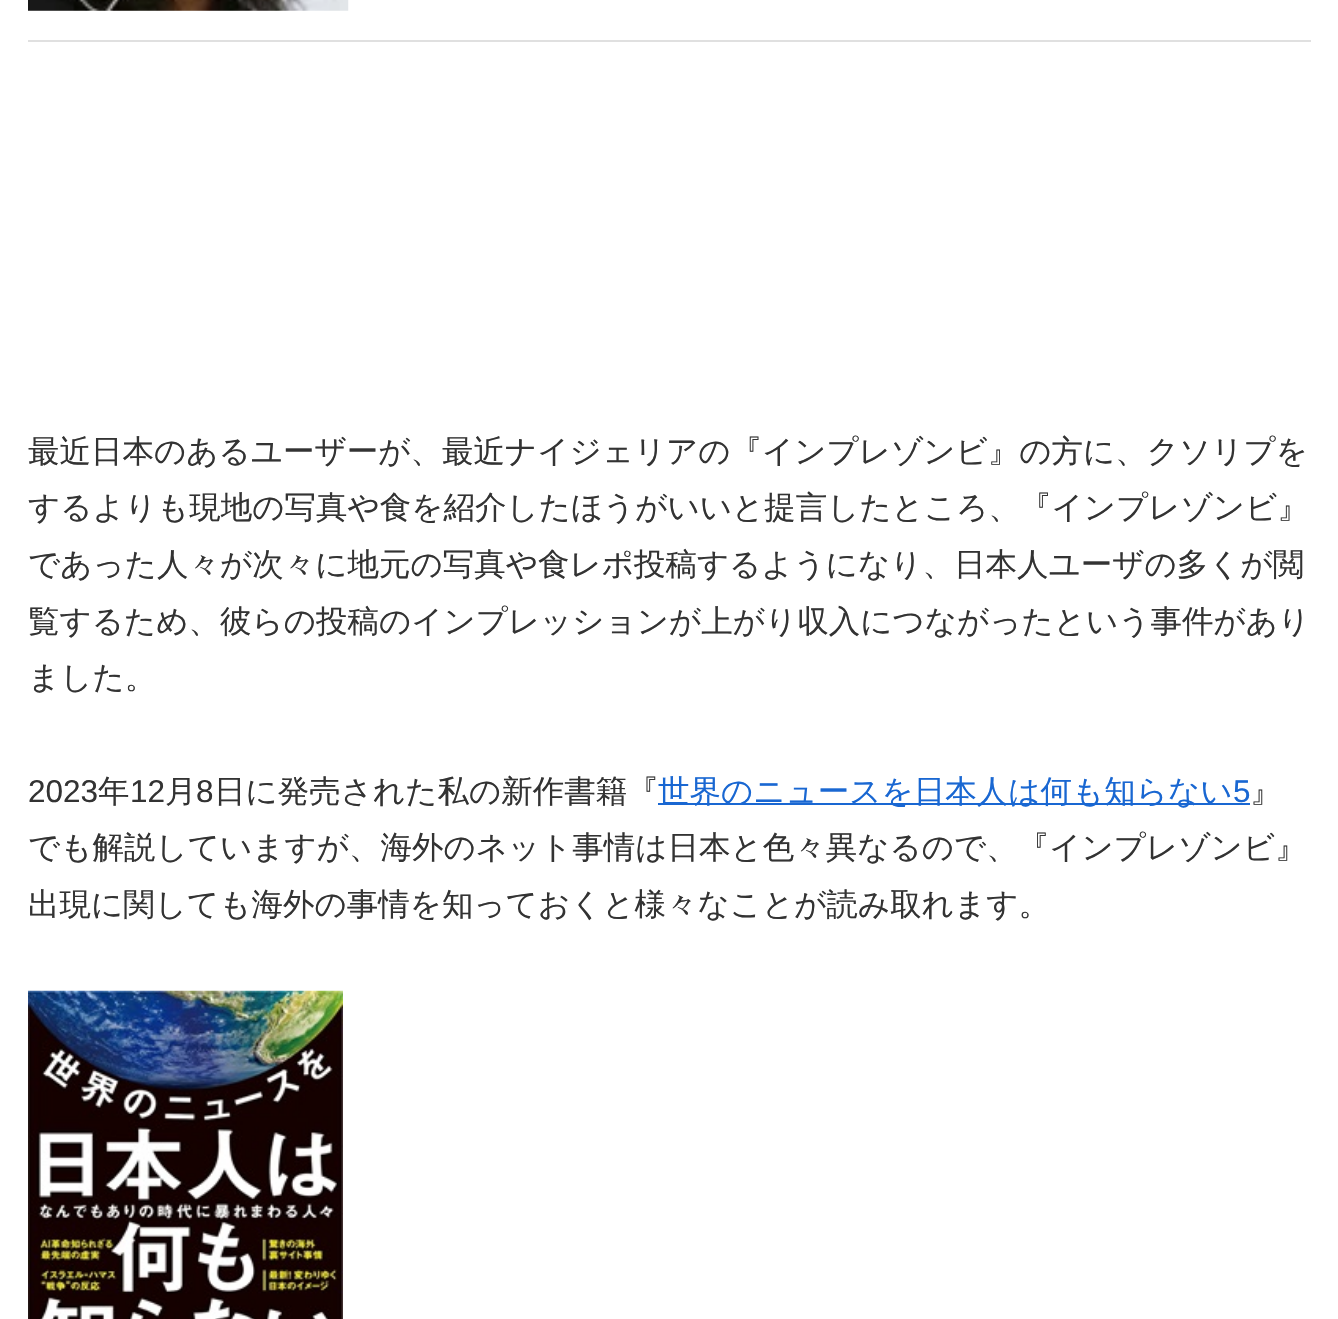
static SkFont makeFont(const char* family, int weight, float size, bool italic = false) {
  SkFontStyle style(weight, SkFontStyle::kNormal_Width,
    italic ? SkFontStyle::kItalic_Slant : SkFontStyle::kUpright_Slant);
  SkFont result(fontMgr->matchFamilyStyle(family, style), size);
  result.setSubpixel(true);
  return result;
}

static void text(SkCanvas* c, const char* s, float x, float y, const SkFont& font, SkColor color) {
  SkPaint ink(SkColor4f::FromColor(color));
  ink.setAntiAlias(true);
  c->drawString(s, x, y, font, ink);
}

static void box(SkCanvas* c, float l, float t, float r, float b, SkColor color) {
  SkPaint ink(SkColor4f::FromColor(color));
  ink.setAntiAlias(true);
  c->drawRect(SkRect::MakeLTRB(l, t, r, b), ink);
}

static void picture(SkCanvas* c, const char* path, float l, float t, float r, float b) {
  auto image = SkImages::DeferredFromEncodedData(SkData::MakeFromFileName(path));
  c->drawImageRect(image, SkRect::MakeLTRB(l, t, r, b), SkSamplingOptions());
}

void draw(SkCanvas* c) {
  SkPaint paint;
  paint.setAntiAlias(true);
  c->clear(0xffffffff);
  box(c, 28, 40, 1311, 42, 0xffe0e0e0);
  picture(c, "img_01.png", 28, 0, 349, 11);
  SkFont face1 = makeFont("WenQuanYi Zen Hei", 500, 31.5f);
  text(c, "最近日本のあるユーザーが、最近ナイジェリアの『インプレゾンビ』の方に、クソリプを", 28, 462, face1, 0xff333333);
  text(c, "するよりも現地の写真や食を紹介したほうがいいと提言したところ、『インプレゾンビ』", 28, 518, face1, 0xff333333);
  text(c, "であった人々が次々に地元の写真や食レポ投稿するようになり、日本人ユーザの多くが閲", 28, 575, face1, 0xff333333);
  text(c, "覧するため、彼らの投稿のインプレッションが上がり収入につながったという事件があり", 28, 632, face1, 0xff333333);
  text(c, "ました。", 28, 688, face1, 0xff333333);
  SkFont face2 = makeFont("Liberation Sans", 400, 31.5f);
  text(c, "2023", 28, 802, face2, 0xff333333);
  text(c, "年", 98, 802, face1, 0xff333333);
  text(c, "12", 130, 802, face2, 0xff333333);
  text(c, "月", 165, 802, face1, 0xff333333);
  text(c, "8", 196, 802, face2, 0xff333333);
  text(c, "日に発売された私の新作書籍『", 214, 802, face1, 0xff333333);
  box(c, 658, 803, 1250, 805, 0xff1967d2);
  text(c, "世界のニュースを日本人は何も知らない", 658, 802, face1, 0xff1967d2);
  text(c, "5", 1233, 802, face2, 0xff1967d2);
  text(c, "』", 1250, 802, face1, 0xff333333);
  text(c, "でも解説していますが、海外のネット事情は日本と色々異なるので、『インプレゾンビ』", 28, 858, face1, 0xff333333);
  text(c, "出現に関しても海外の事情を知っておくと様々なことが読み取れます。", 28, 915, face1, 0xff333333);
  picture(c, "img_02.png", 28, 990, 343, 1319);
}
